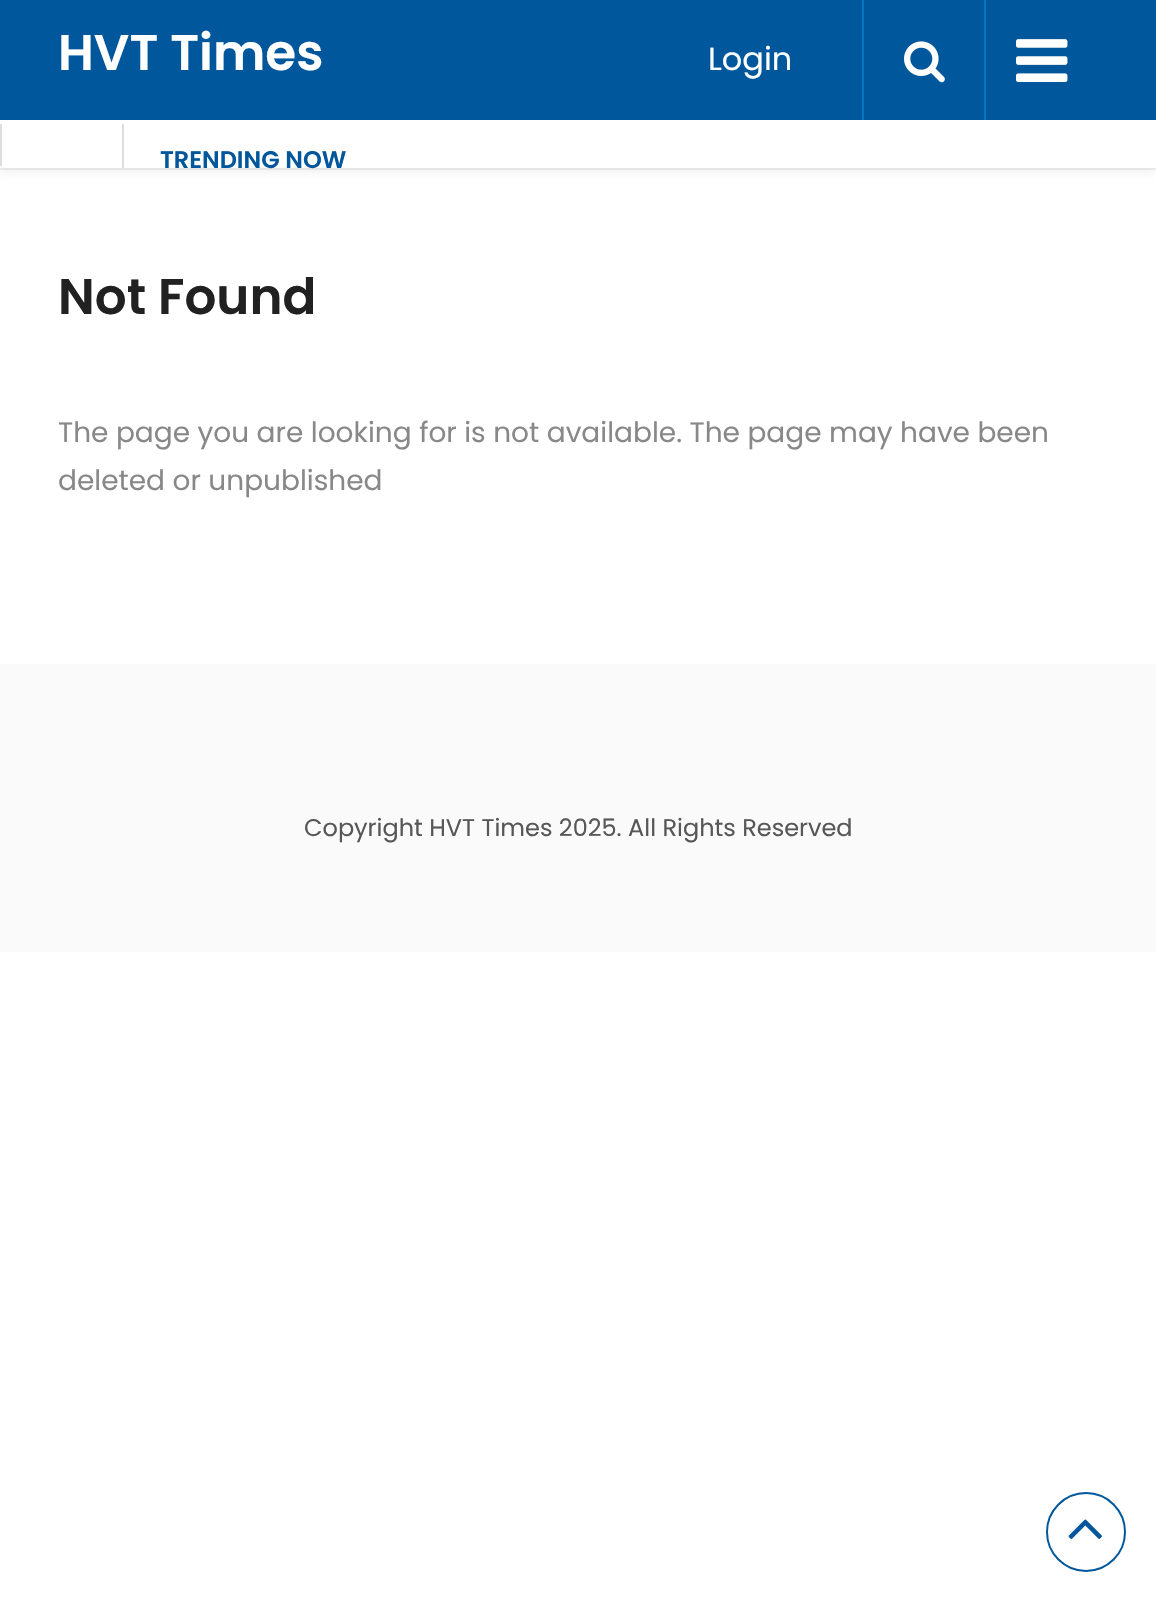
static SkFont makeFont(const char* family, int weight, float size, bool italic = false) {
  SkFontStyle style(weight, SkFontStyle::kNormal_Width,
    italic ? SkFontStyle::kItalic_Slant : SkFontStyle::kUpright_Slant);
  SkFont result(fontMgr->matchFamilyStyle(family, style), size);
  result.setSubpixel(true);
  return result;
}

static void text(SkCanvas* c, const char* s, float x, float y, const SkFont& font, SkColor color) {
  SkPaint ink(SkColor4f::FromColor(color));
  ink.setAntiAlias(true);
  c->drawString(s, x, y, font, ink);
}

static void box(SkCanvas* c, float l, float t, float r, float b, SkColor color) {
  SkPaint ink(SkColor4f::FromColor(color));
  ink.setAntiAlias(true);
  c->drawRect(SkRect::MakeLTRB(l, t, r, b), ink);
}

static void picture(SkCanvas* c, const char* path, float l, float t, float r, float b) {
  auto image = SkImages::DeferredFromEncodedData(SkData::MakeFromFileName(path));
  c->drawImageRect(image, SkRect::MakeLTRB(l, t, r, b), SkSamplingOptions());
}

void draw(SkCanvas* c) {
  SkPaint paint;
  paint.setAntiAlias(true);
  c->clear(0xffffffff);
  paint.setColor(0x0f000000);
  paint.setMaskFilter(SkMaskFilter::MakeBlur(kNormal_SkBlurStyle, 4));
  c->drawRect(SkRect::MakeLTRB(0, 4, 1156, 172), paint);
  paint.setMaskFilter(nullptr);
  box(c, 0, 168, 1156, 170, 0x0d000000);
  box(c, 0, 0, 1156, 120, 0xff01579b);
  SkFont face1 = makeFont("Poppins", 600, 50);
  text(c, "HVT Times", 58, 70, face1, 0xffffffff);
  box(c, 984, 0, 986, 120, 0xff0277bd);
  SkFont face2 = makeFont("Poppins", 400, 32);
  text(c, "Login", 708, 70, face2, 0xffffffff);
  box(c, 862, 0, 864, 120, 0xff0277bd);
  picture(c, "img_01.png", 904, 41, 945, 83);
  picture(c, "img_02.png", 1016, 39, 1068, 82);
  box(c, 0, 120, 1156, 168, 0xffffffff);
  box(c, 0, 124, 2, 166, 0xffdedede);
  box(c, 122, 124, 124, 168, 0xffdedede);
  SkFont face3 = makeFont("Poppins", 600, 24);
  text(c, "TRENDING NOW", 160, 168, face3, 0xff01579b);
  text(c, "Not Found", 58, 314, face1, 0xff212121);
  SkFont face4 = makeFont("Poppins", 400, 28);
  text(c, "The page you are looking for is not available. The page may have been", 58, 442, face4, 0xff888888);
  text(c, "deleted or unpublished", 58, 490, face4, 0xff888888);
  box(c, 0, 664, 1156, 952, 0xfffafafa);
  SkFont face5 = makeFont("Poppins", 400, 24);
  text(c, "Copyright HVT Times 2025. All Rights Reserved", 304, 836, face5, 0xff575757);
  paint.setStyle(SkPaint::kStroke_Style);
  paint.setStrokeWidth(2);
  paint.setColor(0xff01579b);
  c->drawCircle(1086, 1532, 39, paint);
  picture(c, "img_03.png", 1068, 1519, 1102, 1539);
}
